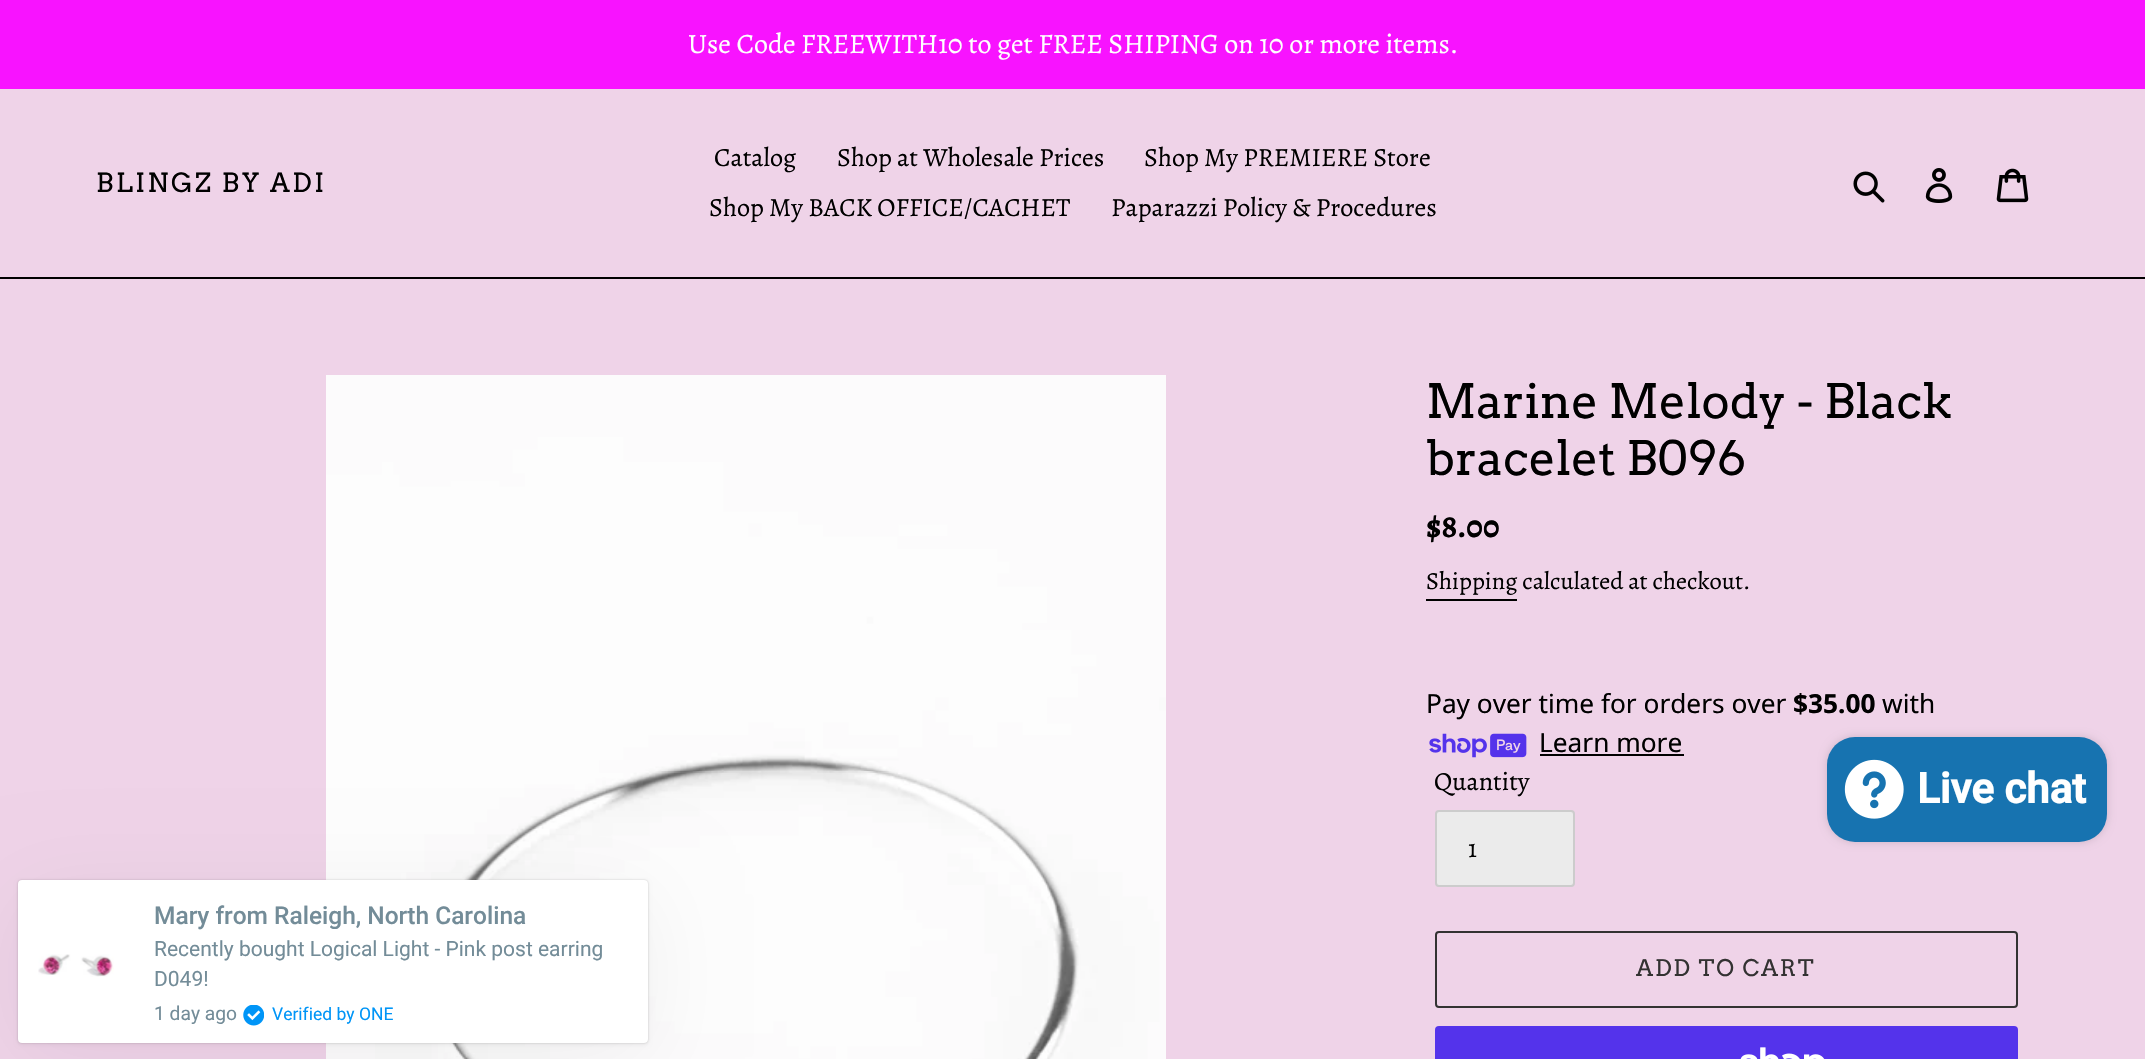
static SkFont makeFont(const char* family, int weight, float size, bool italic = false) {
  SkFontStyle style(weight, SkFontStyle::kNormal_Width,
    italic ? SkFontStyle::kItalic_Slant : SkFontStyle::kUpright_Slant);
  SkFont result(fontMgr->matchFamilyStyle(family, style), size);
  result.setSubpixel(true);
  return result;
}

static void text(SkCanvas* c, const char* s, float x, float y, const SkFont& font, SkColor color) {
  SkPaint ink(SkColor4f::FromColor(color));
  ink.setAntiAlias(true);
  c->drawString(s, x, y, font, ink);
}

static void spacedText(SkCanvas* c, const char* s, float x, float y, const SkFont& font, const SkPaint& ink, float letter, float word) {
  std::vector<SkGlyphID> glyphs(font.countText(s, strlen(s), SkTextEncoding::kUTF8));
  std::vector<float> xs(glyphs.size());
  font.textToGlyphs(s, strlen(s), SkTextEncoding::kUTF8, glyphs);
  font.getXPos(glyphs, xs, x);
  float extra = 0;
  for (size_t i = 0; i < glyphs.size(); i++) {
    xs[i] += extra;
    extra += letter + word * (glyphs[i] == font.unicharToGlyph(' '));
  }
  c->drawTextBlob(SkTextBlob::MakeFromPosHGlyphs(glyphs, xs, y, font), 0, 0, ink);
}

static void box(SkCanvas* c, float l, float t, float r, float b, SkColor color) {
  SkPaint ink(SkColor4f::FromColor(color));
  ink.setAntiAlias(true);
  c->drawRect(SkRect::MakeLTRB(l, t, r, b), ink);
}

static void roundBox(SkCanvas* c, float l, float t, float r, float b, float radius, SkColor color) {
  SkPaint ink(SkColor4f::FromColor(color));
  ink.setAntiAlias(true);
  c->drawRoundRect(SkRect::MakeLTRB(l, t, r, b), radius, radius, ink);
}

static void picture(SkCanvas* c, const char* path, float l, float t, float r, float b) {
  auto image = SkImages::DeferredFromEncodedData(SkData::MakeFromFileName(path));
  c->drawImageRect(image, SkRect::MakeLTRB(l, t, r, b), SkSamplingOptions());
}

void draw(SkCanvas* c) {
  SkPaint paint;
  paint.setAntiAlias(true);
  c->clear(0xffefd3e8);
  box(c, 0, 0, 2145, 89, 0xfff813ff);
  SkFont face1 = makeFont("Alegreya", 400, 28);
  text(c, "Use Code FREEWITH10 to get FREE SHIPING on 10 or more items.", 688, 53, face1, 0xffffffff);
  box(c, 0, 277, 2145, 279, 0xff000000);
  SkFont face2 = makeFont("Arvo", 400, 26.25f);
  paint.setColor(0xff000000);
  spacedText(c, "BLINGZ BY ADI", 96, 192, face2, paint, 2.6f, 0);
  SkFont face3 = makeFont("Alegreya", 400, 26.25f);
  text(c, "Catalog", 714, 166, face3, 0xff000000);
  text(c, "Shop at Wholesale Prices", 837, 166, face3, 0xff000000);
  text(c, "Shop My PREMIERE Store", 1144, 166, face3, 0xff000000);
  text(c, "Shop My BACK OFFICE/CACHET", 709, 216, face3, 0xff000000);
  text(c, "Paparazzi Policy & Procedures", 1111, 216, face3, 0xff000000);
  picture(c, "img_01.png", 1853, 171, 1885, 203);
  picture(c, "img_02.png", 1925, 168, 1953, 203);
  picture(c, "img_03.png", 1996, 168, 2029, 203);
  picture(c, "img_04.png", 326, 375, 1166, 1059);
  SkFont face4 = makeFont("Arvo", 400, 47.25f);
  text(c, "Marine Melody - Black", 1426, 418, face4, 0xff000000);
  text(c, "bracelet B096", 1426, 475, face4, 0xff000000);
  SkFont face5 = makeFont("Alegreya", 700, 33);
  text(c, "$8.00", 1426, 537, face5, 0xff000000);
  SkFont face6 = makeFont("Alegreya", 400, 24.5f);
  text(c, "Shipping calculated at checkout.", 1426, 589, face6, 0xff000000);
  box(c, 1426, 599, 1517, 601, 0xff000000);
  SkFont face7 = makeFont("Noto Sans", 400, 26.25f);
  text(c, "Pay over time for orders over", 1426, 713, face7, 0xff000000);
  SkFont face8 = makeFont("Noto Sans", 700, 26.25f);
  text(c, "$35.00", 1793, 713, face8, 0xff000000);
  text(c, "with", 1882, 713, face7, 0xff000000);
  picture(c, "img_05.png", 1429, 733, 1527, 758);
  text(c, "Learn more", 1539, 752, face7, 0xff000000);
  box(c, 1540, 754, 1684, 756, 0xff000000);
  text(c, "Quantity", 1434, 790, face3, 0xff000000);
  paint.setColor(0xffebebeb);
  c->drawRoundRect(SkRect::MakeLTRB(1436, 811, 1574, 886), 3, 3, paint);
  paint.setStyle(SkPaint::kStroke_Style);
  paint.setStrokeWidth(2);
  paint.setColor(0xffcccccc);
  c->drawRoundRect(SkRect::MakeLTRB(1436, 811, 1574, 886), 3, 3, paint);
  text(c, "1", 1468, 857, face3, 0xff000000);
  paint.setColor(0xff333232);
  c->drawRoundRect(SkRect::MakeLTRB(1436, 932, 2017, 1007), 3, 3, paint);
  SkFont face9 = makeFont("Arvo", 400, 22.75f);
  paint.setStyle(SkPaint::kFill_Style);
  spacedText(c, "ADD TO CART", 1636, 976, face9, paint, 1.75f, 0);
  roundBox(c, 1435, 1026, 2018, 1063, 4, 0xff5433eb);
  picture(c, "img_06.png", 1740, 1047, 1825, 1059);
  paint.setColor(0x26000000);
  paint.setMaskFilter(SkMaskFilter::MakeBlur(kNormal_SkBlurStyle, 4.5f));
  c->drawRoundRect(SkRect::MakeLTRB(1827, 737, 2107, 842), 28, 28, paint);
  paint.setMaskFilter(nullptr);
  roundBox(c, 1827, 737, 2107, 842, 28, 0xff1773b0);
  picture(c, "img_07.png", 1844, 759, 1904, 819);
  SkFont face10 = makeFont("Roboto", 700, 42);
  text(c, "Live chat", 1917, 803, face10, 0xffffffff);
  paint.setColor(0x0d000000);
  paint.setMaskFilter(SkMaskFilter::MakeBlur(kNormal_SkBlurStyle, 44));
  c->drawRoundRect(SkRect::MakeLTRB(18, 894, 648, 1057), 4, 4, paint);
  paint.setMaskFilter(nullptr);
  paint.setMaskFilter(SkMaskFilter::MakeBlur(kNormal_SkBlurStyle, 2));
  c->drawRoundRect(SkRect::MakeLTRB(18, 882, 648, 1045), 4, 4, paint);
  paint.setMaskFilter(nullptr);
  paint.setColor(0x33000000);
  paint.setMaskFilter(SkMaskFilter::MakeBlur(kNormal_SkBlurStyle, 1));
  c->drawRoundRect(SkRect::MakeLTRB(18, 880, 648, 1043), 4, 4, paint);
  paint.setMaskFilter(nullptr);
  roundBox(c, 18, 880, 648, 1043, 4, 0xffffffff);
  picture(c, "img_08.png", 38, 954, 114, 977);
  SkFont face11 = makeFont("Roboto", 500, 24.5f);
  text(c, "Mary from Raleigh, North Carolina", 154, 924, face11, 0xff738c98);
  SkFont face12 = makeFont("Roboto", 400, 21);
  text(c, "Recently bought Logical Light - Pink post earring", 154, 956, face12, 0xff738c98);
  text(c, "D049!", 154, 986, face12, 0xff738c98);
  SkFont face13 = makeFont("Roboto", 400, 19.25f);
  text(c, "1 day ago", 154, 1020, face13, 0xff738c98);
  picture(c, "img_09.png", 243, 1005, 264, 1026);
  SkFont face14 = makeFont("Roboto", 400, 17.5f);
  text(c, "Verified by ONE", 272, 1020, face14, 0xff0095f7);
}
